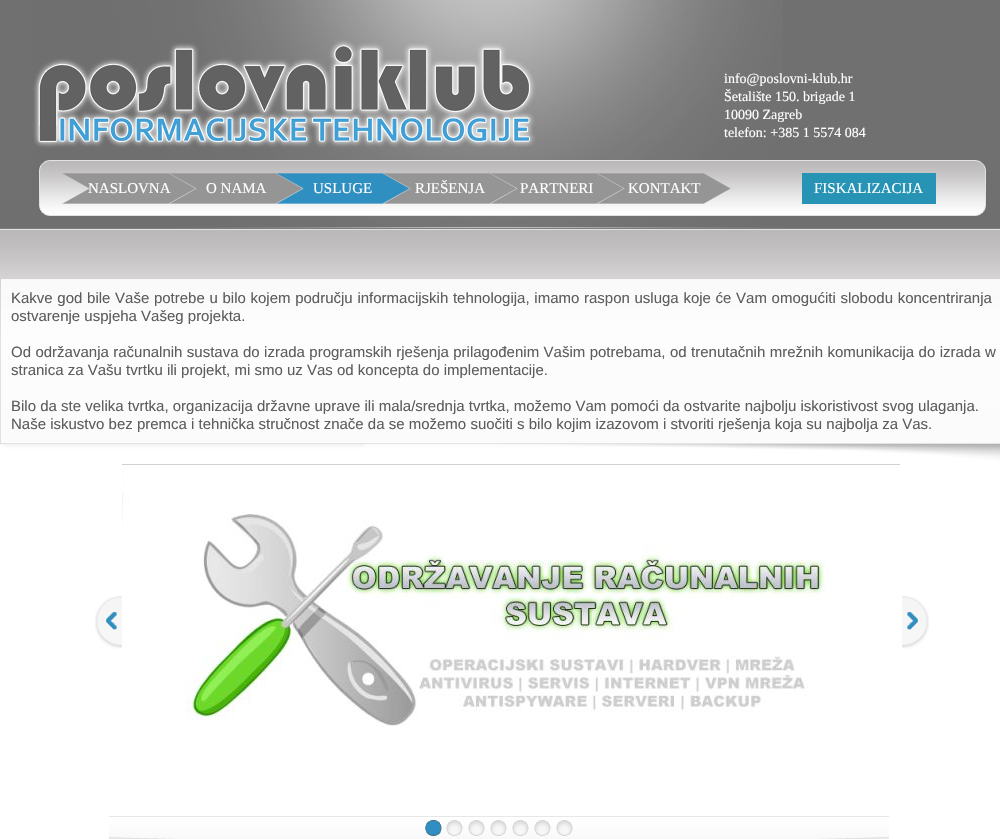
static SkFont makeFont(const char* family, int weight, float size, bool italic = false) {
  SkFontStyle style(weight, SkFontStyle::kNormal_Width,
    italic ? SkFontStyle::kItalic_Slant : SkFontStyle::kUpright_Slant);
  SkFont result(fontMgr->matchFamilyStyle(family, style), size);
  result.setSubpixel(true);
  return result;
}

static void text(SkCanvas* c, const char* s, float x, float y, const SkFont& font, SkColor color) {
  SkPaint ink(SkColor4f::FromColor(color));
  ink.setAntiAlias(true);
  c->drawString(s, x, y, font, ink);
}

static void spacedText(SkCanvas* c, const char* s, float x, float y, const SkFont& font, const SkPaint& ink, float letter, float word) {
  std::vector<SkGlyphID> glyphs(font.countText(s, strlen(s), SkTextEncoding::kUTF8));
  std::vector<float> xs(glyphs.size());
  font.textToGlyphs(s, strlen(s), SkTextEncoding::kUTF8, glyphs);
  font.getXPos(glyphs, xs, x);
  float extra = 0;
  for (size_t i = 0; i < glyphs.size(); i++) {
    xs[i] += extra;
    extra += letter + word * (glyphs[i] == font.unicharToGlyph(' '));
  }
  c->drawTextBlob(SkTextBlob::MakeFromPosHGlyphs(glyphs, xs, y, font), 0, 0, ink);
}

static void box(SkCanvas* c, float l, float t, float r, float b, SkColor color) {
  SkPaint ink(SkColor4f::FromColor(color));
  ink.setAntiAlias(true);
  c->drawRect(SkRect::MakeLTRB(l, t, r, b), ink);
}

static void picture(SkCanvas* c, const char* path, float l, float t, float r, float b) {
  auto image = SkImages::DeferredFromEncodedData(SkData::MakeFromFileName(path));
  c->drawImageRect(image, SkRect::MakeLTRB(l, t, r, b), SkSamplingOptions());
}

void draw(SkCanvas* c) {
  SkPaint paint;
  paint.setAntiAlias(true);
  c->clear(0xffffffff);
  picture(c, "img_01.png", 0, 0, 1000, 336);
  picture(c, "img_02.png", 33, 0, 783, 228);
  SkFont face1 = makeFont("Liberation Serif", 400, 14);
  text(c, "info@poslovni-klub.hr", 724, 83, face1, 0xffffffff);
  text(c, "Šetalište 150. brigade 1", 724, 101, face1, 0xffffffff);
  text(c, "10090 Zagreb", 724, 119, face1, 0xffffffff);
  text(c, "telefon: +385 1 5574 084", 724, 137, face1, 0xffffffff);
  picture(c, "img_03.png", 39, 160, 986, 216);
  picture(c, "img_04.png", 62, 173, 196, 204);
  SkFont face2 = makeFont("Liberation Serif", 400, 15);
  text(c, "NASLOVNA", 88, 193, face2, 0xffffffff);
  picture(c, "img_05.png", 169, 173, 303, 204);
  text(c, "O NAMA", 206, 193, face2, 0xffffffff);
  picture(c, "img_06.png", 276, 173, 410, 204);
  text(c, "USLUGE", 313, 193, face2, 0xffffffff);
  picture(c, "img_07.png", 383, 173, 517, 204);
  text(c, "RJEŠENJA", 415, 193, face2, 0xffffffff);
  picture(c, "img_08.png", 490, 173, 624, 204);
  text(c, "PARTNERI", 520, 193, face2, 0xffffffff);
  picture(c, "img_08.png", 597, 173, 731, 204);
  text(c, "KONTAKT", 628, 193, face2, 0xffffffff);
  box(c, 802, 173, 936, 204, 0xff2794b5);
  text(c, "FISKALIZACIJA", 814, 193, face2, 0xffffffff);
  c->save();
  c->clipPath(SkPathBuilder(SkPathFillType::kEvenOdd).moveTo(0, 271).lineTo(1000, 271).lineTo(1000, 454).lineTo(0, 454).close().moveTo(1, 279).lineTo(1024, 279).lineTo(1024, 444).lineTo(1, 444).close().detach(), true);
  paint.setColor(0xa1dbdbdc);
  paint.setMaskFilter(SkMaskFilter::MakeBlur(kNormal_SkBlurStyle, 2.5f));
  c->drawRect(SkRect::MakeLTRB(2, 280, 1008, 445), paint);
  paint.setMaskFilter(nullptr);
  c->restore();
  box(c, 0, 278, 1000, 279, 0xffd3d2d3);
  box(c, 0, 443, 1000, 444, 0xffe3e3e3);
  box(c, 0, 278, 1, 444, 0xa1d2d2d2);
  box(c, 1, 279, 1000, 336, 0xa1ffffff);
  {
    const SkColor colors[] = {0xa1ffffff, 0xa1f8f8f8};
    const float stops[] = {0, 1};
    const SkPoint ends[] = {{1, 279}, {1, 444}};
    paint.setShader(SkGradientShader::MakeLinear(ends, colors, stops, 2, SkTileMode::kClamp));
    paint.setAlpha(255);
  }
  c->drawRect(SkRect::MakeLTRB(1, 279, 1000, 443), paint);
  SkFont face3 = makeFont("Liberation Sans", 400, 15);
  paint.setShader(nullptr);
  paint.setColor(0xff5d5d5d);
  spacedText(c, "Kakve god bile Vaše potrebe u bilo kojem području informacijskih tehnologija, imamo raspon usluga koje će Vam omogućiti slobodu koncentriranja", 11, 303, face3, paint, 0, 0.5f);
  text(c, "ostvarenje uspjeha Vašeg projekta.", 11, 321, face3, 0xff5d5d5d);
  spacedText(c, "Od održavanja računalnih sustava do izrada programskih rješenja prilagođenim Vašim potrebama, od trenutačnih mrežnih komunikacija do izrada w", 11, 357, face3, paint, 0, 0.25f);
  text(c, "stranica za Vašu tvrtku ili projekt, mi smo uz Vas od koncepta do implementacije.", 11, 375, face3, 0xff5d5d5d);
  text(c, "Bilo da ste velika tvrtka, organizacija državne uprave ili mala/srednja tvrtka, možemo Vam pomoći da ostvarite najbolju iskoristivost svog ulaganja.", 11, 411, face3, 0xff5d5d5d);
  text(c, "Naše iskustvo bez premca i tehnička stručnost znače da se možemo suočiti s bilo kojim izazovom i stvoriti rješenja koja su najbolja za Vas.", 11, 429, face3, 0xff5d5d5d);
  picture(c, "img_09.png", 364, 444, 1000, 460);
  picture(c, "img_10.png", 95, 596, 122, 649);
  picture(c, "img_11.png", 122, 464, 900, 727);
  picture(c, "img_12.png", 902, 596, 929, 649);
  picture(c, "img_13.png", 109, 816, 889, 839);
  picture(c, "img_14.png", 425, 820, 442, 836);
  picture(c, "img_15.png", 446, 820, 463, 836);
  picture(c, "img_15.png", 468, 820, 485, 836);
  picture(c, "img_15.png", 490, 820, 507, 836);
  picture(c, "img_15.png", 512, 820, 529, 836);
  picture(c, "img_15.png", 534, 820, 551, 836);
  picture(c, "img_15.png", 556, 820, 573, 836);
}
